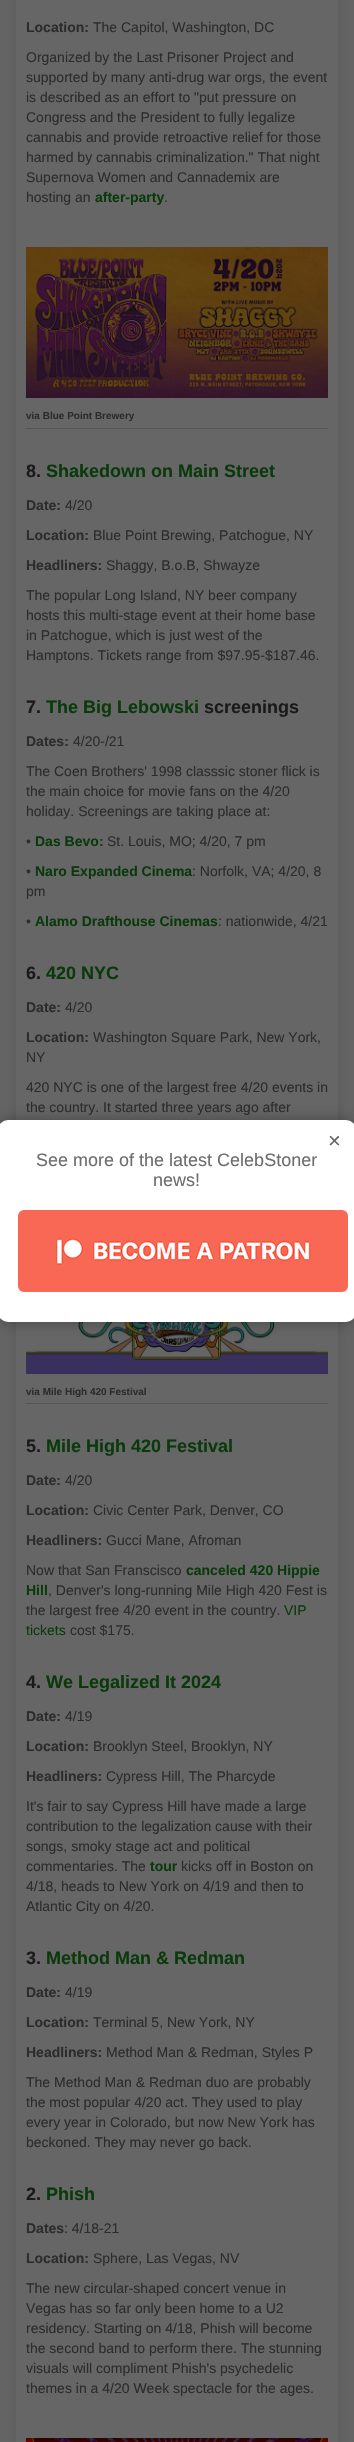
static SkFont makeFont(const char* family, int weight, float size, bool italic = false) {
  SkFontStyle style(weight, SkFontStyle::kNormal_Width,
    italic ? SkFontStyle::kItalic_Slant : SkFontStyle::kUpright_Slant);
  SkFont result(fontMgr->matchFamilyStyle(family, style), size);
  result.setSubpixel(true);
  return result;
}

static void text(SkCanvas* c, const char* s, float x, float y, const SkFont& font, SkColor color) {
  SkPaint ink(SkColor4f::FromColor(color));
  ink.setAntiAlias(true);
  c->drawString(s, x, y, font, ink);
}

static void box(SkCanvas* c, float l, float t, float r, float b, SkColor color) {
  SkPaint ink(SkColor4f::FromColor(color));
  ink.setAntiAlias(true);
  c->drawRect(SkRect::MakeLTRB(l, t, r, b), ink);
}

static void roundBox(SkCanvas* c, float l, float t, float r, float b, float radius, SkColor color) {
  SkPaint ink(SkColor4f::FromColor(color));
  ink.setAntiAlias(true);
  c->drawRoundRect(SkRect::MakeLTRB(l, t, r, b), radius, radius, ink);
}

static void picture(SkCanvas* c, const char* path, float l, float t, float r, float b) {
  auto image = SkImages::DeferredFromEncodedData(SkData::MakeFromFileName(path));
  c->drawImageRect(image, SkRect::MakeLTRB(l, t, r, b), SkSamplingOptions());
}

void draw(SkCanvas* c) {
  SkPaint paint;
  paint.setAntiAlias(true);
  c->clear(0xff646464);
  paint.setColor(0xff585858);
  paint.setMaskFilter(SkMaskFilter::MakeBlur(kNormal_SkBlurStyle, 5));
  c->drawRect(SkRect::MakeLTRB(16, -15, 338, 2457), paint);
  paint.setMaskFilter(nullptr);
  box(c, 16, 0, 338, 2442, 0xff666666);
  SkFont face1 = makeFont("Liberation Sans", 700, 14);
  text(c, "Location:", 26, 32, face1, 0xff2c2c2c);
  SkFont face2 = makeFont("Liberation Sans", 400, 14);
  text(c, "The Capitol, Washington, DC", 93, 32, face2, 0xff2c2c2c);
  text(c, "Organized by the Last Prisoner Project and", 26, 62, face2, 0xff2c2c2c);
  text(c, "supported by many anti-drug war orgs, the event", 26, 82, face2, 0xff2c2c2c);
  text(c, "is described as an effort to \"put pressure on", 26, 102, face2, 0xff2c2c2c);
  text(c, "Congress and the President to fully legalize", 26, 122, face2, 0xff2c2c2c);
  text(c, "cannabis and provide retroactive relief for those", 26, 142, face2, 0xff2c2c2c);
  text(c, "harmed by cannabis criminalization.\" That night", 26, 162, face2, 0xff2c2c2c);
  text(c, "Supernova Women and Cannademix are", 26, 182, face2, 0xff2c2c2c);
  text(c, "hosting an", 26, 202, face2, 0xff2c2c2c);
  text(c, "after-party", 95, 202, face1, 0xff0a3a0b);
  text(c, ".", 164, 202, face2, 0xff2c2c2c);
  picture(c, "img_01.png", 26, 247, 328, 398);
  box(c, 26, 428, 328, 429, 0xff555555);
  SkFont face3 = makeFont("Liberation Sans", 700, 10);
  text(c, "via Blue Point Brewery", 26, 419, face3, 0xff2c2c2c);
  SkFont face4 = makeFont("Liberation Sans", 700, 18);
  text(c, "8.", 26, 477, face4, 0xff1a1a1a);
  text(c, "Shakedown on Main Street", 46, 477, face4, 0xff0a3a0b);
  text(c, "Date:", 26, 510, face1, 0xff2c2c2c);
  text(c, "4/20", 65, 510, face2, 0xff2c2c2c);
  text(c, "Location:", 26, 540, face1, 0xff2c2c2c);
  text(c, "Blue Point Brewing, Patchogue, NY", 93, 540, face2, 0xff2c2c2c);
  text(c, "Headliners:", 26, 570, face1, 0xff2c2c2c);
  text(c, "Shaggy, B.o.B, Shwayze", 106, 570, face2, 0xff2c2c2c);
  text(c, "The popular Long Island, NY beer company", 26, 600, face2, 0xff2c2c2c);
  text(c, "hosts this multi-stage event at their home base", 26, 620, face2, 0xff2c2c2c);
  text(c, "in Patchogue, which is just west of the", 26, 640, face2, 0xff2c2c2c);
  text(c, "Hamptons. Tickets range from $97.95-$187.46.", 26, 660, face2, 0xff2c2c2c);
  text(c, "7.", 26, 713, face4, 0xff1a1a1a);
  text(c, "The Big Lebowski", 46, 713, face4, 0xff0a3a0b);
  text(c, "screenings", 204, 713, face4, 0xff1a1a1a);
  text(c, "Dates:", 26, 746, face1, 0xff2c2c2c);
  text(c, "4/20-/21", 73, 746, face2, 0xff2c2c2c);
  text(c, "The Coen Brothers' 1998 classsic stoner flick is", 26, 776, face2, 0xff2c2c2c);
  text(c, "the main choice for movie fans on the 4/20", 26, 796, face2, 0xff2c2c2c);
  text(c, "holiday. Screenings are taking place at:", 26, 816, face2, 0xff2c2c2c);
  text(c, "•", 26, 846, face2, 0xff2c2c2c);
  text(c, "Das Bevo", 35, 846, face1, 0xff0a3a0b);
  text(c, ":", 99, 846, face1, 0xff2c2c2c);
  text(c, "St. Louis, MO; 4/20, 7 pm", 107, 846, face2, 0xff2c2c2c);
  text(c, "•", 26, 876, face2, 0xff2c2c2c);
  text(c, "Naro Expanded Cinema", 35, 876, face1, 0xff0a3a0b);
  text(c, ": Norfolk, VA; 4/20, 8", 192, 876, face2, 0xff2c2c2c);
  text(c, "pm", 26, 896, face2, 0xff2c2c2c);
  text(c, "•", 26, 926, face2, 0xff2c2c2c);
  text(c, "Alamo Drafthouse Cinemas", 35, 926, face1, 0xff0a3a0b);
  text(c, ": nationwide, 4/21", 218, 926, face2, 0xff2c2c2c);
  text(c, "6.", 26, 979, face4, 0xff1a1a1a);
  text(c, "420 NYC", 46, 979, face4, 0xff0a3a0b);
  text(c, "Date:", 26, 1012, face1, 0xff2c2c2c);
  text(c, "4/20", 65, 1012, face2, 0xff2c2c2c);
  text(c, "Location:", 26, 1042, face1, 0xff2c2c2c);
  text(c, "Washington Square Park, New York,", 93, 1042, face2, 0xff2c2c2c);
  text(c, "NY", 26, 1062, face2, 0xff2c2c2c);
  text(c, "420 NYC is one of the largest free 4/20 events in", 26, 1092, face2, 0xff2c2c2c);
  text(c, "the country. It started three years ago after", 26, 1112, face2, 0xff2c2c2c);
  picture(c, "img_02.png", 26, 1322, 328, 1374);
  box(c, 26, 1403, 328, 1404, 0xff555555);
  text(c, "via Mile High 420 Festival", 26, 1395, face3, 0xff2c2c2c);
  text(c, "5.", 26, 1452, face4, 0xff1a1a1a);
  text(c, "Mile High 420 Festival", 46, 1452, face4, 0xff0a3a0b);
  text(c, "Date:", 26, 1485, face1, 0xff2c2c2c);
  text(c, "4/20", 65, 1485, face2, 0xff2c2c2c);
  text(c, "Location:", 26, 1515, face1, 0xff2c2c2c);
  text(c, "Civic Center Park, Denver, CO", 93, 1515, face2, 0xff2c2c2c);
  text(c, "Headliners:", 26, 1545, face1, 0xff2c2c2c);
  text(c, "Gucci Mane, Afroman", 106, 1545, face2, 0xff2c2c2c);
  text(c, "Now that San Franscisco", 26, 1575, face2, 0xff2c2c2c);
  text(c, "canceled 420 Hippie", 186, 1575, face1, 0xff0a3a0b);
  text(c, "Hill", 26, 1595, face1, 0xff0a3a0b);
  text(c, ", Denver's long-running Mile High 420 Fest is", 48, 1595, face2, 0xff2c2c2c);
  text(c, "the largest free 4/20 event in the country.", 26, 1615, face2, 0xff2c2c2c);
  text(c, "VIP", 284, 1615, face2, 0xff0a3a0b);
  text(c, "tickets", 26, 1635, face2, 0xff0a3a0b);
  text(c, "cost $175.", 70, 1635, face2, 0xff2c2c2c);
  text(c, "4.", 26, 1688, face4, 0xff1a1a1a);
  text(c, "We Legalized It 2024", 46, 1688, face4, 0xff0a3a0b);
  text(c, "Date:", 26, 1721, face1, 0xff2c2c2c);
  text(c, "4/19", 65, 1721, face2, 0xff2c2c2c);
  text(c, "Location:", 26, 1751, face1, 0xff2c2c2c);
  text(c, "Brooklyn Steel, Brooklyn, NY", 93, 1751, face2, 0xff2c2c2c);
  text(c, "Headliners:", 26, 1781, face1, 0xff2c2c2c);
  text(c, "Cypress Hill, The Pharcyde", 106, 1781, face2, 0xff2c2c2c);
  text(c, "It's fair to say Cypress Hill have made a large", 26, 1811, face2, 0xff2c2c2c);
  text(c, "contribution to the legalization cause with their", 26, 1831, face2, 0xff2c2c2c);
  text(c, "songs, smoky stage act and political", 26, 1851, face2, 0xff2c2c2c);
  text(c, "commentaries. The", 26, 1871, face2, 0xff2c2c2c);
  text(c, "tour", 150, 1871, face1, 0xff0a3a0b);
  text(c, "kicks off in Boston on", 181, 1871, face2, 0xff2c2c2c);
  text(c, "4/18, heads to New York on 4/19 and then to", 26, 1891, face2, 0xff2c2c2c);
  text(c, "Atlantic City on 4/20.", 26, 1911, face2, 0xff2c2c2c);
  text(c, "3.", 26, 1964, face4, 0xff1a1a1a);
  text(c, "Method Man & Redman", 46, 1964, face4, 0xff0a3a0b);
  text(c, "Date:", 26, 1997, face1, 0xff2c2c2c);
  text(c, "4/19", 65, 1997, face2, 0xff2c2c2c);
  text(c, "Location:", 26, 2027, face1, 0xff2c2c2c);
  text(c, "Terminal 5, New York, NY", 93, 2027, face2, 0xff2c2c2c);
  text(c, "Headliners:", 26, 2057, face1, 0xff2c2c2c);
  text(c, "Method Man & Redman, Styles P", 106, 2057, face2, 0xff2c2c2c);
  text(c, "The Method Man & Redman duo are probably", 26, 2087, face2, 0xff2c2c2c);
  text(c, "the most popular 4/20 act. They used to play", 26, 2107, face2, 0xff2c2c2c);
  text(c, "every year in Colorado, but now New York has", 26, 2127, face2, 0xff2c2c2c);
  text(c, "beckoned. They may never go back.", 26, 2147, face2, 0xff2c2c2c);
  text(c, "2.", 26, 2200, face4, 0xff1a1a1a);
  text(c, "Phish", 46, 2200, face4, 0xff0a3a0b);
  text(c, "Dates", 26, 2233, face1, 0xff2c2c2c);
  text(c, ": 4/18-21", 64, 2233, face2, 0xff2c2c2c);
  text(c, "Location:", 26, 2263, face1, 0xff2c2c2c);
  text(c, "Sphere, Las Vegas, NV", 93, 2263, face2, 0xff2c2c2c);
  text(c, "The new circular-shaped concert venue in", 26, 2293, face2, 0xff2c2c2c);
  text(c, "Vegas has so far only been home to a U2", 26, 2313, face2, 0xff2c2c2c);
  text(c, "residency. Starting on 4/18, Phish will become", 26, 2333, face2, 0xff2c2c2c);
  text(c, "the second band to perform there. The stunning", 26, 2353, face2, 0xff2c2c2c);
  text(c, "visuals will compliment Phish's psychedelic", 26, 2373, face2, 0xff2c2c2c);
  text(c, "themes in a 4/20 Week spectacle for the ages.", 26, 2393, face2, 0xff2c2c2c);
  picture(c, "img_03.png", 26, 2438, 328, 2442);
  paint.setColor(0x4d000000);
  paint.setMaskFilter(SkMaskFilter::MakeBlur(kNormal_SkBlurStyle, 7.5f));
  c->drawRoundRect(SkRect::MakeLTRB(-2, 1120, 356, 1322), 10, 10, paint);
  paint.setMaskFilter(nullptr);
  roundBox(c, -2, 1120, 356, 1322, 10, 0xffffffff);
  SkFont face5 = makeFont("Liberation Sans", 400, 22);
  text(c, "×", 328, 1148, face5, 0xff666666);
  SkFont face6 = makeFont("Liberation Sans", 400, 18);
  text(c, "See more of the latest CelebStoner", 36, 1166, face6, 0xff6d6d6d);
  text(c, "news!", 153, 1186, face6, 0xff6d6d6d);
  roundBox(c, 18, 1210, 348, 1292, 6, 0xfff96854);
  picture(c, "img_04.png", 56, 1238, 311, 1265);
}
